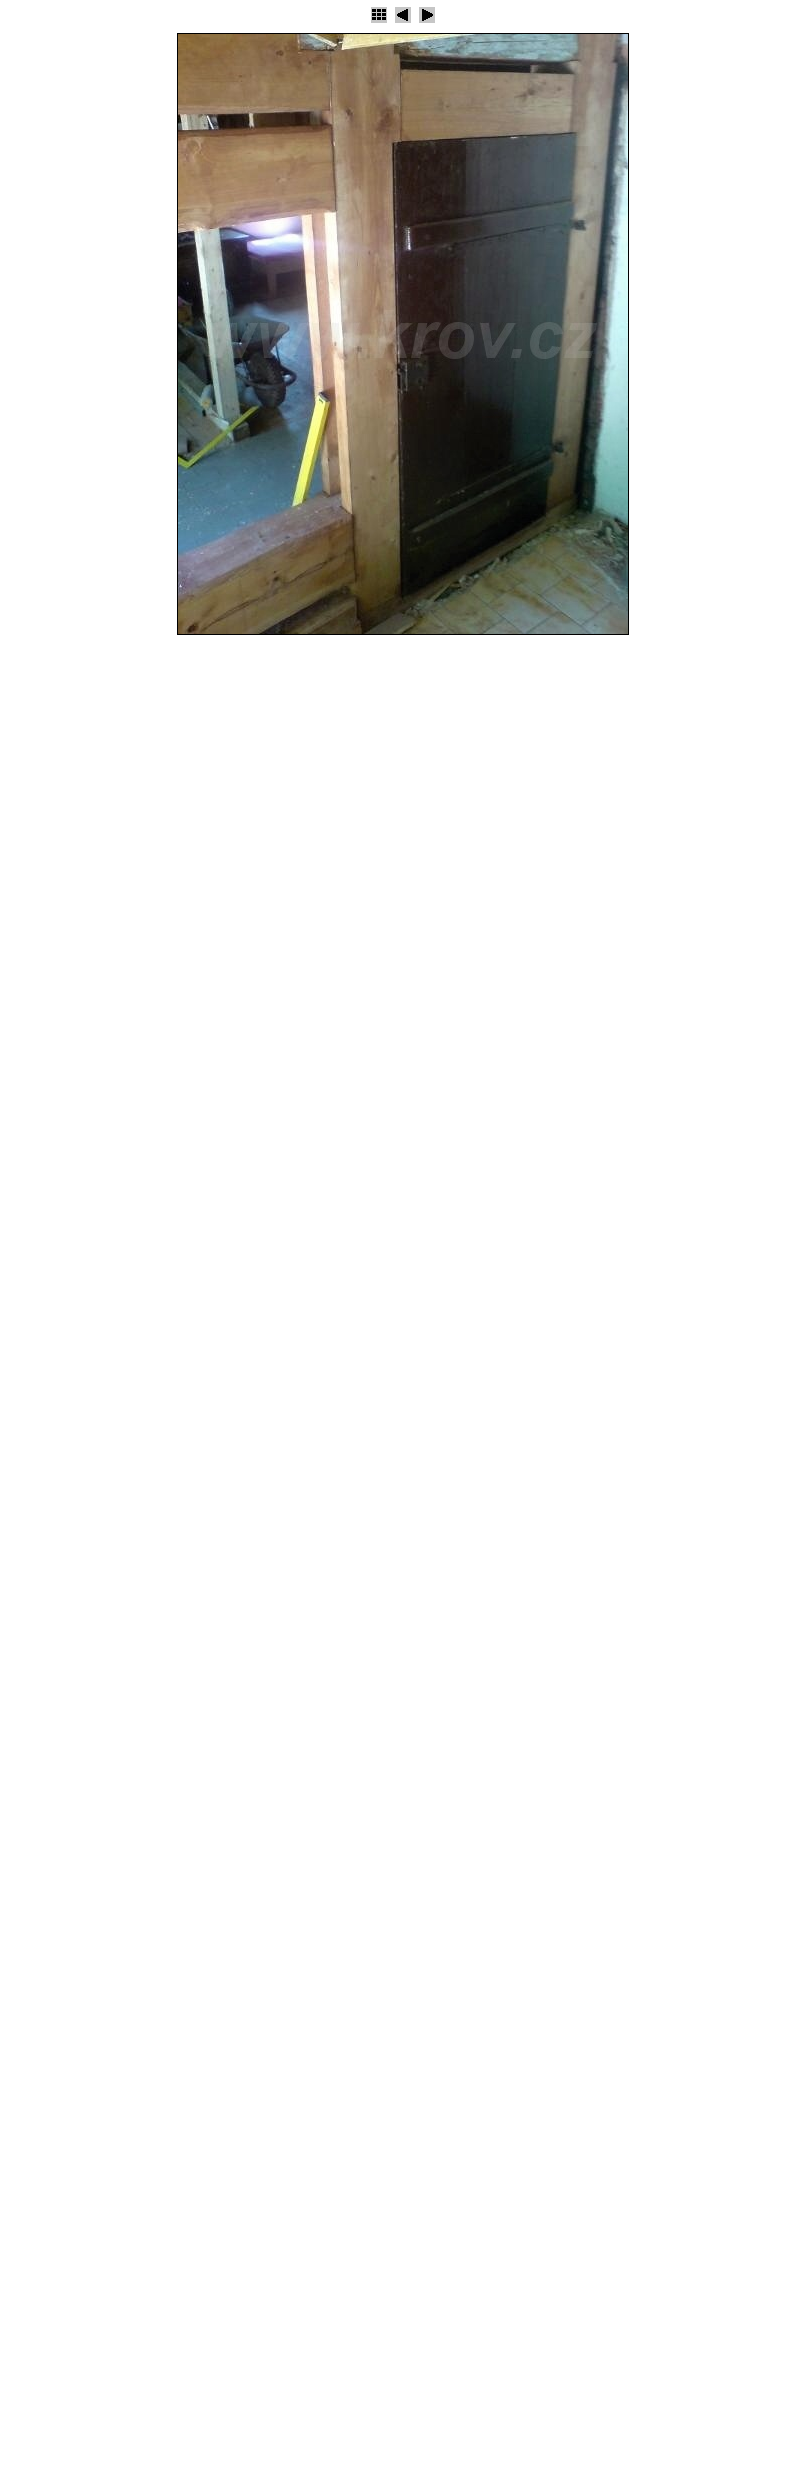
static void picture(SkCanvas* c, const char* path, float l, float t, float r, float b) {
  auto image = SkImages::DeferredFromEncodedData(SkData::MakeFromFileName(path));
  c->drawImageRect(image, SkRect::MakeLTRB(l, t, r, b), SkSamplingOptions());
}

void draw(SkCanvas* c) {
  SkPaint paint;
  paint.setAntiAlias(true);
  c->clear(0xffffffff);
  picture(c, "img_01.png", 371, 7, 387, 23);
  picture(c, "img_02.png", 395, 7, 411, 23);
  picture(c, "img_03.png", 419, 7, 435, 23);
  paint.setStyle(SkPaint::kStroke_Style);
  paint.setStrokeWidth(1);
  paint.setColor(0xff000000);
  c->drawRect(SkRect::MakeLTRB(177.5f, 33.5f, 628.5f, 634.5f), paint);
  picture(c, "img_04.png", 178, 34, 628, 634);
}
